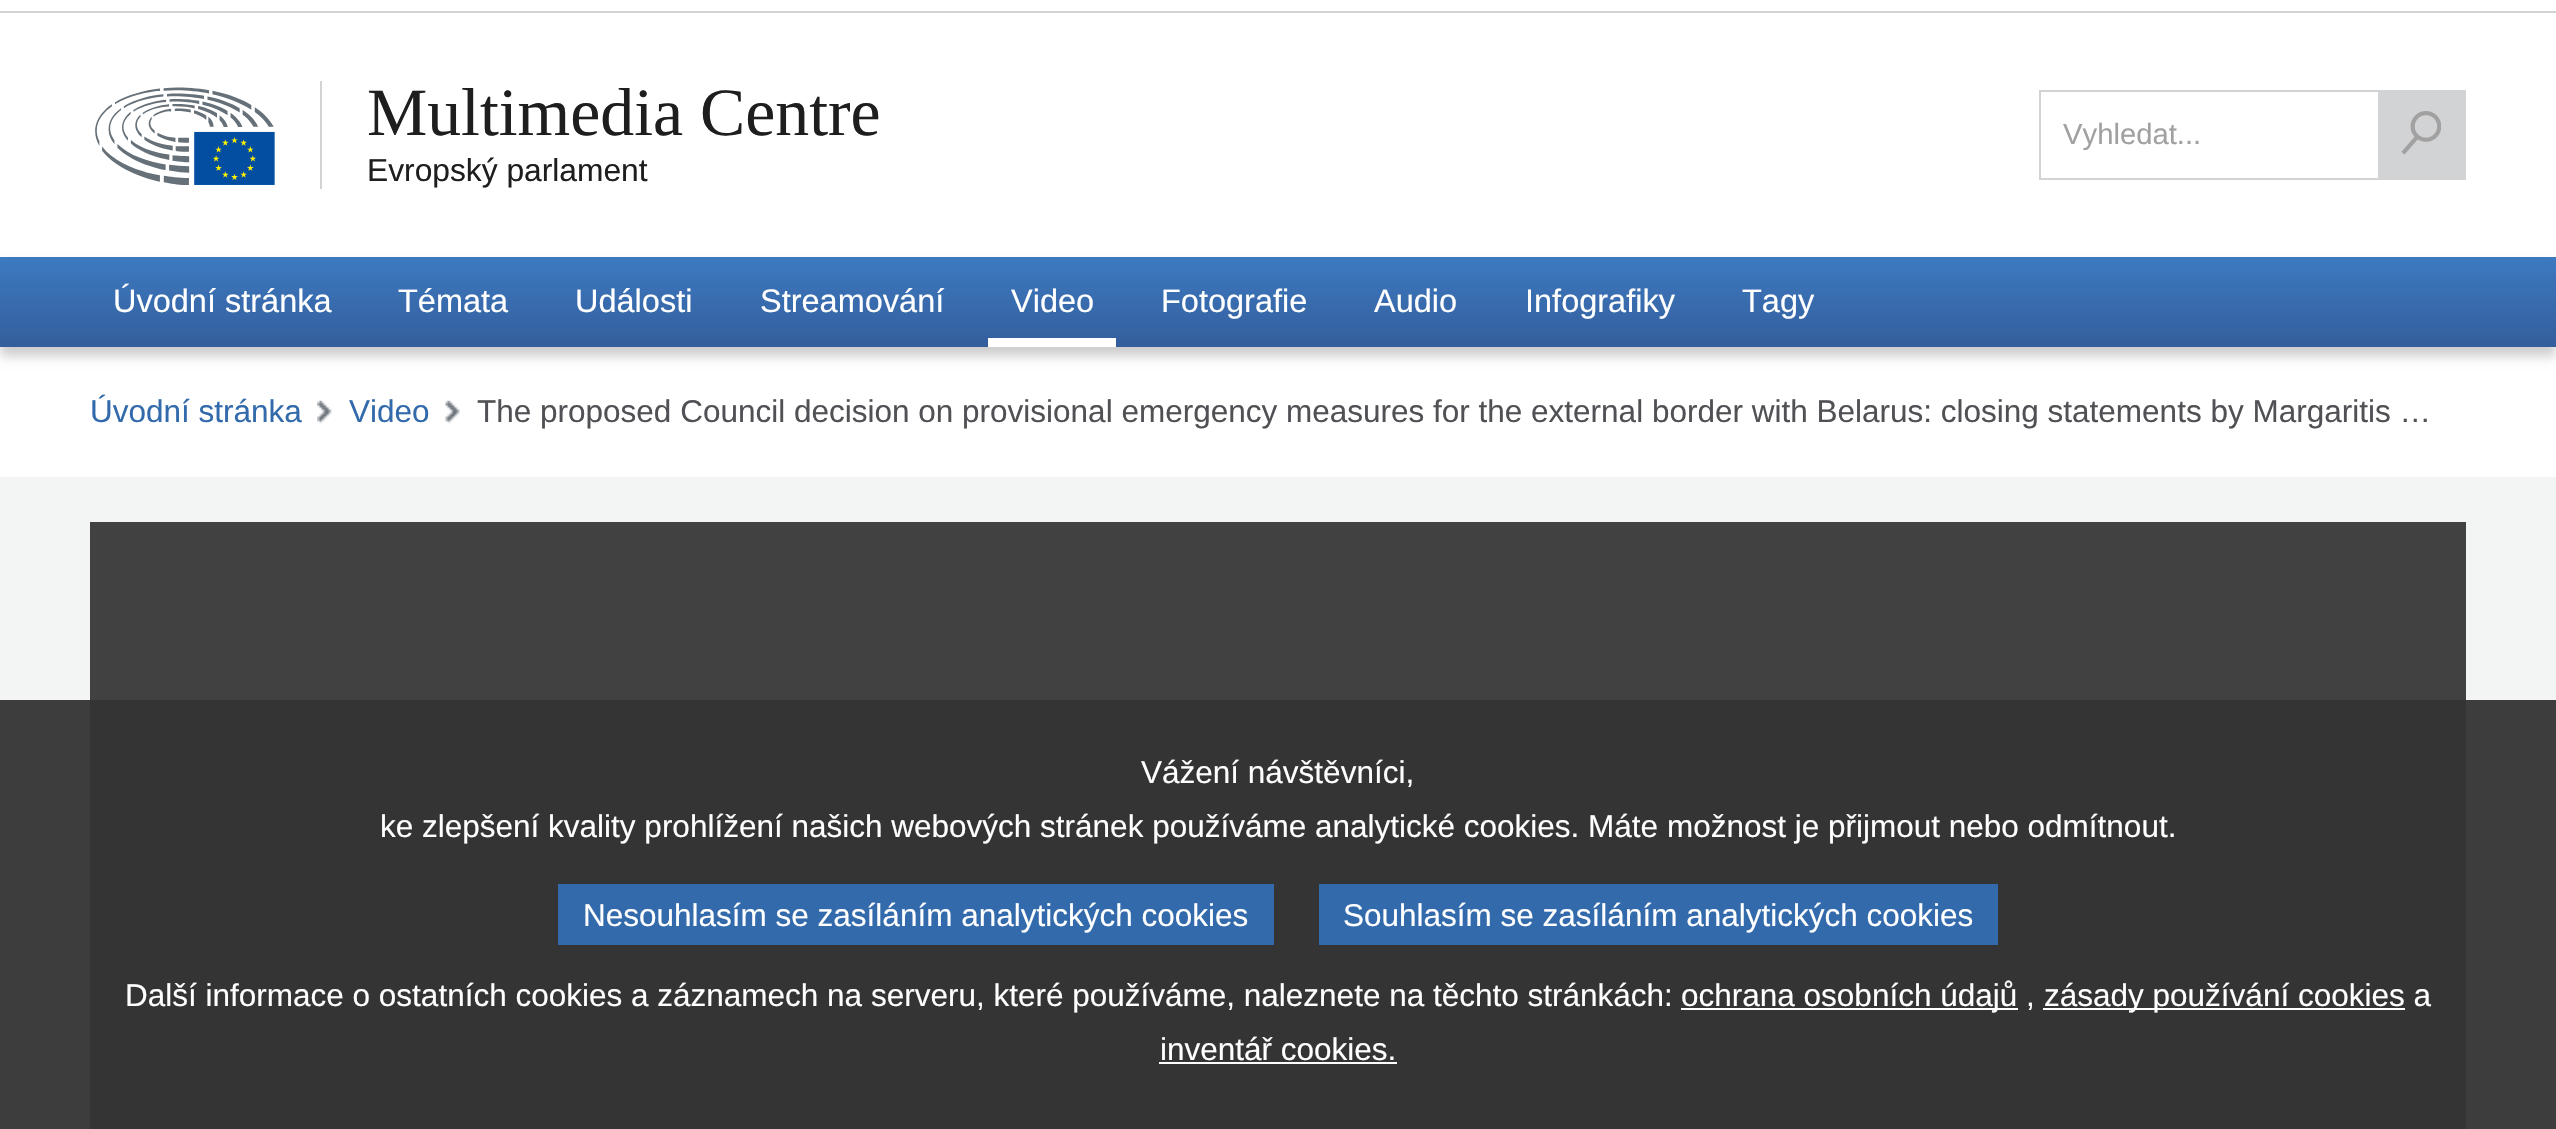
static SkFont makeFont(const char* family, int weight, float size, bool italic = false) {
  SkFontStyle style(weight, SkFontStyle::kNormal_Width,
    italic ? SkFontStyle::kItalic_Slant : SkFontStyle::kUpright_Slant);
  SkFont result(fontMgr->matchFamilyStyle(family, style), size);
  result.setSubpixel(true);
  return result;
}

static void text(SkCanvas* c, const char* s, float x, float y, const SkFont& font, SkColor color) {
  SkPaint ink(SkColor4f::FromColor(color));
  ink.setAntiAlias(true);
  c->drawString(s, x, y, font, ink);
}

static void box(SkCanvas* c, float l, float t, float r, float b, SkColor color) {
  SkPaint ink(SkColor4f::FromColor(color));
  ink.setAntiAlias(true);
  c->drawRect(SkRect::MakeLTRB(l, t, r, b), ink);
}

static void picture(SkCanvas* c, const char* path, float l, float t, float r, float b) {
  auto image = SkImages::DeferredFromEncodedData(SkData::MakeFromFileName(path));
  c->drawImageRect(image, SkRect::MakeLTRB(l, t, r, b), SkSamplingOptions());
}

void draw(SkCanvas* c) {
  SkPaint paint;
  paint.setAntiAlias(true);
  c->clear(0xffffffff);
  box(c, 0, 11, 2556, 13, 0xffd1d3d4);
  picture(c, "img_01.png", 95, 87, 275, 185);
  box(c, 320, 81, 322, 189, 0xffd1d3d4);
  SkFont face1 = makeFont("Liberation Serif", 400, 67.75f);
  text(c, "Multimedia Centre", 367, 135, face1, 0xff1e1e1f);
  SkFont face2 = makeFont("Liberation Sans", 400, 31.75f);
  text(c, "Evropský parlament", 367, 181, face2, 0xff1e1e1f);
  paint.setStyle(SkPaint::kStroke_Style);
  paint.setStrokeWidth(2);
  paint.setColor(0xffd1d3d4);
  c->drawRect(SkRect::MakeLTRB(2040, 91, 2465, 179), paint);
  SkFont face3 = makeFont("Liberation Sans", 400, 29.25f);
  text(c, "Vyhledat...", 2063, 144, face3, 0xffa2a1a2);
  box(c, 2378, 92, 2464, 178, 0xffd1d3d4);
  picture(c, "img_02.png", 2401, 111, 2441, 155);
  paint.setStyle(SkPaint::kFill_Style);
  paint.setColor(0x33000000);
  paint.setMaskFilter(SkMaskFilter::MakeBlur(kNormal_SkBlurStyle, 5.5f));
  c->drawRect(SkRect::MakeLTRB(0, 266, 2556, 356), paint);
  paint.setMaskFilter(nullptr);
  {
    const SkColor colors[] = {0xff3d7ac1, 0xff345e9c};
    const float stops[] = {0, 1};
    const SkPoint ends[] = {{1278, 256}, {1278, 347}};
    paint.setShader(SkGradientShader::MakeLinear(ends, colors, stops, 2, SkTileMode::kClamp));
    paint.setAlpha(255);
  }
  c->drawRect(SkRect::MakeLTRB(0, 257, 2556, 347), paint);
  SkFont face4 = makeFont("Liberation Sans", 400, 32.5f);
  text(c, "Úvodní stránka", 113, 312, face4, 0xffffffff);
  text(c, "Témata", 398, 312, face4, 0xffffffff);
  text(c, "Události", 575, 312, face4, 0xffffffff);
  text(c, "Streamování", 760, 312, face4, 0xffffffff);
  text(c, "Video", 1011, 312, face4, 0xffffffff);
  box(c, 988, 338, 1116, 347, 0xffffffff);
  text(c, "Fotografie", 1161, 312, face4, 0xffffffff);
  text(c, "Audio", 1374, 312, face4, 0xffffffff);
  text(c, "Infografiky", 1525, 312, face4, 0xffffffff);
  text(c, "Tagy", 1742, 312, face4, 0xffffffff);
  SkFont face5 = makeFont("Liberation Sans", 400, 31.5f);
  text(c, "Úvodní stránka", 90, 422, face5, 0xff326aab);
  picture(c, "img_03.png", 317, 400, 332, 424);
  text(c, "Video", 349, 422, face5, 0xff326aab);
  picture(c, "img_04.png", 445, 400, 460, 424);
  text(c, "The proposed Council decision on provisional emergency measures for the external border with Belarus: closing statements by Margaritis …", 477, 422, face5, 0xff505154);
  box(c, 0, 477, 2556, 700, 0xfff3f4f4);
  box(c, 0, 700, 2556, 1129, 0xff3d3d3d);
  box(c, 90, 522, 2466, 700, 0xff414141);
  box(c, 90, 700, 2466, 1129, 0xff343434);
  text(c, "Vážení návštěvníci,", 1141, 783, face5, 0xffffffff);
  text(c, "ke zlepšení kvality prohlížení našich webových stránek používáme analytické cookies. Máte možnost je přijmout nebo odmítnout.", 380, 837, face5, 0xffffffff);
  box(c, 558, 884, 1274, 945, 0xff326aab);
  text(c, "Nesouhlasím se zasíláním analytických cookies", 583, 926, face5, 0xffffffff);
  box(c, 1319, 884, 1998, 945, 0xff326aab);
  text(c, "Souhlasím se zasíláním analytických cookies", 1343, 926, face5, 0xffffffff);
  text(c, "Další informace o ostatních cookies a záznamech na serveru, které používáme, naleznete na těchto stránkách:", 125, 1006, face5, 0xffffffff);
  box(c, 1681, 1008, 2018, 1010, 0xffffffff);
  text(c, "ochrana osobních údajů ,", 1681, 1006, face5, 0xffffffff);
  box(c, 2043, 1008, 2405, 1010, 0xffffffff);
  text(c, "zásady používání cookies a", 2044, 1006, face5, 0xffffffff);
  text(c, "inventář cookies.", 1160, 1060, face5, 0xffffffff);
  box(c, 1159, 1062, 1397, 1064, 0xffffffff);
}
